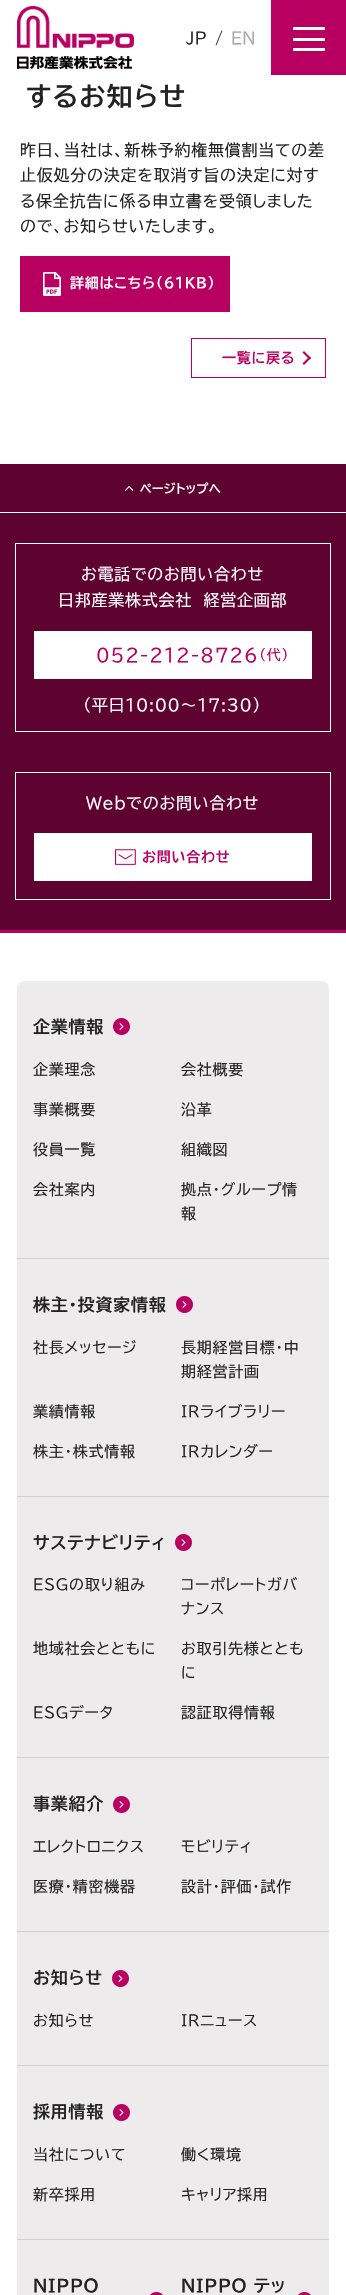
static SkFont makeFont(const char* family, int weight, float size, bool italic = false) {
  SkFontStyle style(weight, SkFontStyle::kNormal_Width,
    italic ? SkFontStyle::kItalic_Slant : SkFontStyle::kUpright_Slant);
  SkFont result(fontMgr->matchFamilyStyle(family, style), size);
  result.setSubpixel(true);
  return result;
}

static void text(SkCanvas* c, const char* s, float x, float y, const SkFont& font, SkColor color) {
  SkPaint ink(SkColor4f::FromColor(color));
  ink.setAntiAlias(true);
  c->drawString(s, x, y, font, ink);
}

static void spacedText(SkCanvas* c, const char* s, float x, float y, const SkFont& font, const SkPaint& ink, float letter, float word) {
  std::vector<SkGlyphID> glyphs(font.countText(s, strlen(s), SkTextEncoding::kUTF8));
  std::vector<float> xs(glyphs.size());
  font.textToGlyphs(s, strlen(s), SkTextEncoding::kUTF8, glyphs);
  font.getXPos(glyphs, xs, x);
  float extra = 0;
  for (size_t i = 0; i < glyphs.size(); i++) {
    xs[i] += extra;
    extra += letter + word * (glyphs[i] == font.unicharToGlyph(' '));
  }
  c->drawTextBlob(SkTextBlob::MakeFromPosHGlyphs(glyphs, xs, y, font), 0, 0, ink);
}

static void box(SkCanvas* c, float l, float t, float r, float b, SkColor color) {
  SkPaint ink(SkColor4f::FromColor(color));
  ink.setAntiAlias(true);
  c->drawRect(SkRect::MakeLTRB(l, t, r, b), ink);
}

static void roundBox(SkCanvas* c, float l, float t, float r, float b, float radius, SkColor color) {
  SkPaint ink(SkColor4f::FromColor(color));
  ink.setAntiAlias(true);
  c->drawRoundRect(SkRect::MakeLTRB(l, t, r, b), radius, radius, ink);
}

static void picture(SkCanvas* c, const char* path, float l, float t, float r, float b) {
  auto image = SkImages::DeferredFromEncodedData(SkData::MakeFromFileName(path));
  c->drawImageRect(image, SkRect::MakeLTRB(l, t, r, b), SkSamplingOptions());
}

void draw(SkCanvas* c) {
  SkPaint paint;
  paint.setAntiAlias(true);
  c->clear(0xffffffff);
  picture(c, "img_01.png", 17, 6, 134, 48);
  picture(c, "img_02.png", 17, 56, 132, 69);
  SkFont face1 = makeFont("BIZ UDPGothic", 400, 16);
  text(c, "JP", 186, 44, face1, 0xff222222);
  text(c, "/", 215, 44, face1, 0xff222222);
  text(c, "EN", 231, 44, face1, 0xffa6a6a6);
  box(c, 271, 0, 346, 75, 0xffb80060);
  box(c, 293, 27, 325, 30, 0xffffffff);
  box(c, 293, 38, 325, 41, 0xffffffff);
  box(c, 293, 48, 325, 51, 0xffffffff);
  SkFont face2 = makeFont("BIZ UDPGothic", 700, 26);
  paint.setColor(0xff222222);
  spacedText(c, "するお知らせ", 26, 106, face2, paint, 1.25f, 0);
  spacedText(c, "昨日、当社は、新株予約権無償割当ての差", 20, 156, face1, paint, 0.75f, 0);
  spacedText(c, "止仮処分の決定を取消す旨の決定に対す", 20, 181, face1, paint, 0.75f, 0);
  spacedText(c, "る保全抗告に係る申立書を受領しました", 20, 207, face1, paint, 0.75f, 0);
  spacedText(c, "ので、お知らせいたします。", 20, 232, face1, paint, 0.75f, 0);
  box(c, 20, 256, 230, 312, 0xffb80060);
  picture(c, "img_03.png", 43, 272, 61, 296);
  SkFont face3 = makeFont("BIZ UDPGothic", 700, 14);
  paint.setColor(0xffffffff);
  spacedText(c, "詳細はこちら（61KB）", 70, 288, face3, paint, 0.75f, 0);
  paint.setStyle(SkPaint::kStroke_Style);
  paint.setStrokeWidth(1);
  paint.setColor(0xffb80060);
  c->drawRect(SkRect::MakeLTRB(191.5f, 338.5f, 325.5f, 377.5f), paint);
  paint.setStyle(SkPaint::kFill_Style);
  spacedText(c, "一覧に戻る", 222, 363, face3, paint, 0.75f, 0);
  c->drawPath(SkPathBuilder().moveTo(302.5f, 352.5f).lineTo(304, 351).lineTo(311, 358).lineTo(309.5f, 359.5f).close().detach(), paint);
  c->drawPath(SkPathBuilder().moveTo(302.5f, 363.5f).lineTo(309.5f, 356.5f).lineTo(311, 358).lineTo(304, 365).close().detach(), paint);
  box(c, 0, 464, 346, 512, 0xff5e022f);
  paint.setColor(0xffffffff);
  c->drawPath(SkPathBuilder().moveTo(125, 490).lineTo(129, 486).lineTo(130, 486.5f).lineTo(125.5f, 491).close().detach(), paint);
  c->drawPath(SkPathBuilder().moveTo(128.5f, 486.5f).lineTo(129, 486).lineTo(133.5f, 490).lineTo(132.5f, 491).close().detach(), paint);
  SkFont face4 = makeFont("BIZ UDPGothic", 700, 12);
  spacedText(c, "ページトップへ", 140, 493, face4, paint, 0.5f, 0);
  box(c, 0, 513, 346, 930, 0xff5e022f);
  paint.setStyle(SkPaint::kStroke_Style);
  c->drawRect(SkRect::MakeLTRB(15.5f, 543.5f, 330.5f, 731.5f), paint);
  paint.setStyle(SkPaint::kFill_Style);
  spacedText(c, "お電話でのお問い合わせ", 81, 580, face1, paint, 0.75f, 0);
  spacedText(c, "日邦産業株式会社　経営企画部", 58, 606, face1, paint, 0.75f, 0);
  box(c, 34, 631, 312, 679, 0xffffffff);
  SkFont face5 = makeFont("BIZ UDPGothic", 400, 18);
  paint.setColor(0xffb80060);
  spacedText(c, "052-212-8726", 96, 662, face5, paint, 0.9f, 0);
  SkFont face6 = makeFont("BIZ UDPGothic", 400, 14);
  spacedText(c, "（代）", 259, 660, face6, paint, 0.75f, 0);
  paint.setColor(0xffffffff);
  spacedText(c, "（平日10:00〜17:30）", 83, 711, face1, paint, 0.75f, 0);
  paint.setStyle(SkPaint::kStroke_Style);
  c->drawRect(SkRect::MakeLTRB(15.5f, 772.5f, 330.5f, 899.5f), paint);
  paint.setStyle(SkPaint::kFill_Style);
  spacedText(c, "Webでのお問い合わせ", 86, 809, face1, paint, 0.75f, 0);
  box(c, 34, 833, 312, 881, 0xffffffff);
  picture(c, "img_04.png", 115, 849, 136, 865);
  paint.setColor(0xffb80060);
  spacedText(c, "お問い合わせ", 142, 862, face3, paint, 0.75f, 0);
  box(c, 0, 930, 346, 933, 0xffb80060);
  roundBox(c, 17, 981, 329, 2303, 8, 0xffedebec);
  SkFont face7 = makeFont("BIZ UDPGothic", 700, 17);
  paint.setColor(0xff222222);
  spacedText(c, "企業情報", 33, 1033, face7, paint, 0.75f, 0);
  picture(c, "img_05.png", 113, 1018, 130, 1035);
  SkFont face8 = makeFont("BIZ UDPGothic", 400, 15);
  spacedText(c, "企業理念", 33, 1075, face8, paint, 0.75f, 0);
  spacedText(c, "会社概要", 181, 1075, face8, paint, 0.75f, 0);
  spacedText(c, "事業概要", 33, 1115, face8, paint, 0.75f, 0);
  spacedText(c, "沿革", 181, 1115, face8, paint, 0.75f, 0);
  spacedText(c, "役員一覧", 33, 1155, face8, paint, 0.75f, 0);
  spacedText(c, "組織図", 181, 1155, face8, paint, 0.75f, 0);
  spacedText(c, "会社案内", 33, 1195, face8, paint, 0.75f, 0);
  spacedText(c, "拠点・グループ情", 181, 1195, face8, paint, 0.75f, 0);
  spacedText(c, "報", 181, 1219, face8, paint, 0.75f, 0);
  box(c, 17, 1258, 329, 1259, 0xffd1cfd0);
  spacedText(c, "株主・投資家情報", 33, 1311, face7, paint, 0.75f, 0);
  picture(c, "img_05.png", 176, 1296, 193, 1313);
  spacedText(c, "社長メッセージ", 33, 1353, face8, paint, 0.75f, 0);
  spacedText(c, "長期経営目標・中", 181, 1353, face8, paint, 0.75f, 0);
  spacedText(c, "期経営計画", 181, 1377, face8, paint, 0.75f, 0);
  spacedText(c, "業績情報", 33, 1417, face8, paint, 0.75f, 0);
  spacedText(c, "IRライブラリー", 181, 1417, face8, paint, 0.75f, 0);
  spacedText(c, "株主・株式情報", 33, 1457, face8, paint, 0.75f, 0);
  spacedText(c, "IRカレンダー", 181, 1457, face8, paint, 0.75f, 0);
  box(c, 17, 1496, 329, 1497, 0xffd1cfd0);
  spacedText(c, "サステナビリティ", 33, 1549, face7, paint, 0.75f, 0);
  picture(c, "img_05.png", 175, 1534, 192, 1551);
  spacedText(c, "ESGの取り組み", 33, 1590, face8, paint, 0.75f, 0);
  spacedText(c, "コーポレートガバ", 181, 1590, face8, paint, 0.75f, 0);
  spacedText(c, "ナンス", 181, 1614, face8, paint, 0.75f, 0);
  spacedText(c, "地域社会とともに", 33, 1654, face8, paint, 0.75f, 0);
  spacedText(c, "お取引先様ととも", 181, 1654, face8, paint, 0.75f, 0);
  spacedText(c, "に", 181, 1678, face8, paint, 0.75f, 0);
  spacedText(c, "ESGデータ", 33, 1718, face8, paint, 0.75f, 0);
  spacedText(c, "認証取得情報", 181, 1718, face8, paint, 0.75f, 0);
  box(c, 17, 1757, 329, 1758, 0xffd1cfd0);
  spacedText(c, "事業紹介", 33, 1810, face7, paint, 0.75f, 0);
  picture(c, "img_05.png", 113, 1796, 130, 1813);
  spacedText(c, "エレクトロニクス", 33, 1852, face8, paint, 0.75f, 0);
  spacedText(c, "モビリティ", 181, 1852, face8, paint, 0.75f, 0);
  spacedText(c, "医療・精密機器", 33, 1892, face8, paint, 0.75f, 0);
  spacedText(c, "設計・評価・試作", 181, 1892, face8, paint, 0.75f, 0);
  box(c, 17, 1931, 329, 1932, 0xffd1cfd0);
  spacedText(c, "お知らせ", 33, 1984, face7, paint, 0.75f, 0);
  picture(c, "img_05.png", 112, 1970, 129, 1987);
  spacedText(c, "お知らせ", 33, 2026, face8, paint, 0.75f, 0);
  spacedText(c, "IRニュース", 181, 2026, face8, paint, 0.75f, 0);
  box(c, 17, 2065, 329, 2066, 0xffd1cfd0);
  spacedText(c, "採用情報", 33, 2118, face7, paint, 0.75f, 0);
  picture(c, "img_05.png", 113, 2104, 130, 2121);
  spacedText(c, "当社について", 33, 2160, face8, paint, 0.75f, 0);
  spacedText(c, "働く環境", 181, 2160, face8, paint, 0.75f, 0);
  spacedText(c, "新卒採用", 33, 2200, face8, paint, 0.75f, 0);
  spacedText(c, "キャリア採用", 181, 2200, face8, paint, 0.75f, 0);
  box(c, 17, 2239, 329, 2240, 0xffd1cfd0);
  spacedText(c, "NIPPO", 33, 2292, face7, paint, 0.75f, 0);
  picture(c, "img_06.png", 150, 2292, 163, 2295);
  spacedText(c, "NIPPO テッ", 181, 2292, face7, paint, 0.75f, 0);
  picture(c, "img_06.png", 298, 2292, 311, 2295);
}
